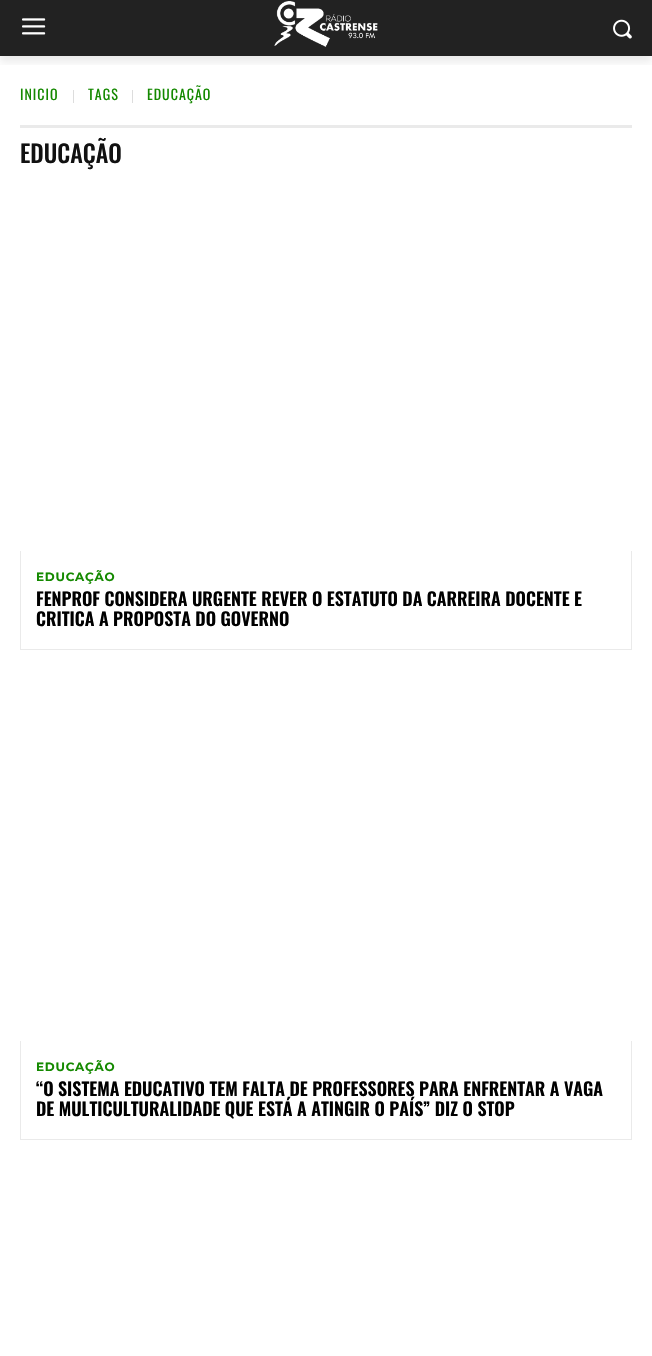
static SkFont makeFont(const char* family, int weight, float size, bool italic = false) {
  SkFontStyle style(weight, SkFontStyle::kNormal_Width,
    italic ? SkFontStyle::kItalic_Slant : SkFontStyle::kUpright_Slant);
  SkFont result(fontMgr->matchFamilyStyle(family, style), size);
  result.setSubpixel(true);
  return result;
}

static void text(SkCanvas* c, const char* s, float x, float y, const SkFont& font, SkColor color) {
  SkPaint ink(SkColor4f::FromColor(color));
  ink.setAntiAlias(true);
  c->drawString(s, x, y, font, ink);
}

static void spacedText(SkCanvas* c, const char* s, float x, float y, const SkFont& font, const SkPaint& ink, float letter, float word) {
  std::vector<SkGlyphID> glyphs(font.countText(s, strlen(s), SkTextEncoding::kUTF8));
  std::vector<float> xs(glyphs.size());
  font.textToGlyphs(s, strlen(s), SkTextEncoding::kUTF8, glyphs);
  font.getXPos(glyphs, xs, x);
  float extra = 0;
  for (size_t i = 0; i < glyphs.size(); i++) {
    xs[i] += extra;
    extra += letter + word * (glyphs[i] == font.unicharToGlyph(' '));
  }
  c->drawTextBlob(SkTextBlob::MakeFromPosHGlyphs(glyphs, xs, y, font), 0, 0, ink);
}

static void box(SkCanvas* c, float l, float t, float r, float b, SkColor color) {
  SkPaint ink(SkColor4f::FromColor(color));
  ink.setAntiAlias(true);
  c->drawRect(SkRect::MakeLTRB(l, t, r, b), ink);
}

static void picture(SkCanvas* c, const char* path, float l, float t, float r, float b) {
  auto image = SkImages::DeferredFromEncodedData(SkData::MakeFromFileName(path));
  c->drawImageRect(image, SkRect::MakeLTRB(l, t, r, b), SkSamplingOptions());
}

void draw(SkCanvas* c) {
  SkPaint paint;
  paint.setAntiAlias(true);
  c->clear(0xffffffff);
  box(c, 0, 0, 652, 56, 0xff222222);
  picture(c, "img_01.png", 22, 18, 46, 35);
  picture(c, "img_02.png", 274, 1, 378, 47);
  picture(c, "img_03.png", 613, 19, 632, 39);
  c->save();
  c->clipRect(SkRect::MakeLTRB(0, 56, 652, 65));
  paint.setColor(0x14000000);
  paint.setMaskFilter(SkMaskFilter::MakeBlur(kNormal_SkBlurStyle, 4));
  c->drawRect(SkRect::MakeLTRB(0, 6, 652, 62), paint);
  paint.setMaskFilter(nullptr);
  c->restore();
  SkFont face1 = makeFont("Oswald", 400, 14);
  paint.setColor(0xff148900);
  spacedText(c, "INICIO", 20, 100, face1, paint, 1, 0);
  box(c, 73, 90, 74, 103, 0xffdddddd);
  spacedText(c, "TAGS", 88, 100, face1, paint, 1, 0);
  box(c, 132, 90, 133, 103, 0xffdddddd);
  spacedText(c, "EDUCAÇÃO", 147, 100, face1, paint, 1, 0);
  box(c, 20, 125, 632, 128, 0xffeaeaea);
  SkFont face2 = makeFont("Oswald", 500, 24);
  text(c, "EDUCAÇÃO", 20, 163, face2, 0xff111111);
  box(c, 631, 551, 632, 650, 0xffeaeaea);
  box(c, 20, 649, 632, 650, 0xffeaeaea);
  box(c, 20, 551, 21, 650, 0xffeaeaea);
  SkFont face3 = makeFont("Montserrat", 700, 12);
  spacedText(c, "EDUCAÇÃO", 36, 581, face3, paint, 0.75f, 0);
  SkFont face4 = makeFont("Oswald", 600, 18);
  text(c, "FENPROF CONSIDERA URGENTE REVER O ESTATUTO DA CARREIRA DOCENTE E", 36, 606, face4, 0xff000000);
  text(c, "CRITICA A PROPOSTA DO GOVERNO", 36, 626, face4, 0xff000000);
  box(c, 631, 1041, 632, 1140, 0xffeaeaea);
  box(c, 20, 1139, 632, 1140, 0xffeaeaea);
  box(c, 20, 1041, 21, 1140, 0xffeaeaea);
  spacedText(c, "EDUCAÇÃO", 36, 1071, face3, paint, 0.75f, 0);
  text(c, "“O SISTEMA EDUCATIVO TEM FALTA DE PROFESSORES PARA ENFRENTAR A VAGA", 36, 1096, face4, 0xff000000);
  text(c, "DE MULTICULTURALIDADE QUE ESTÁ A ATINGIR O PAÍS” DIZ O STOP", 36, 1116, face4, 0xff000000);
}
